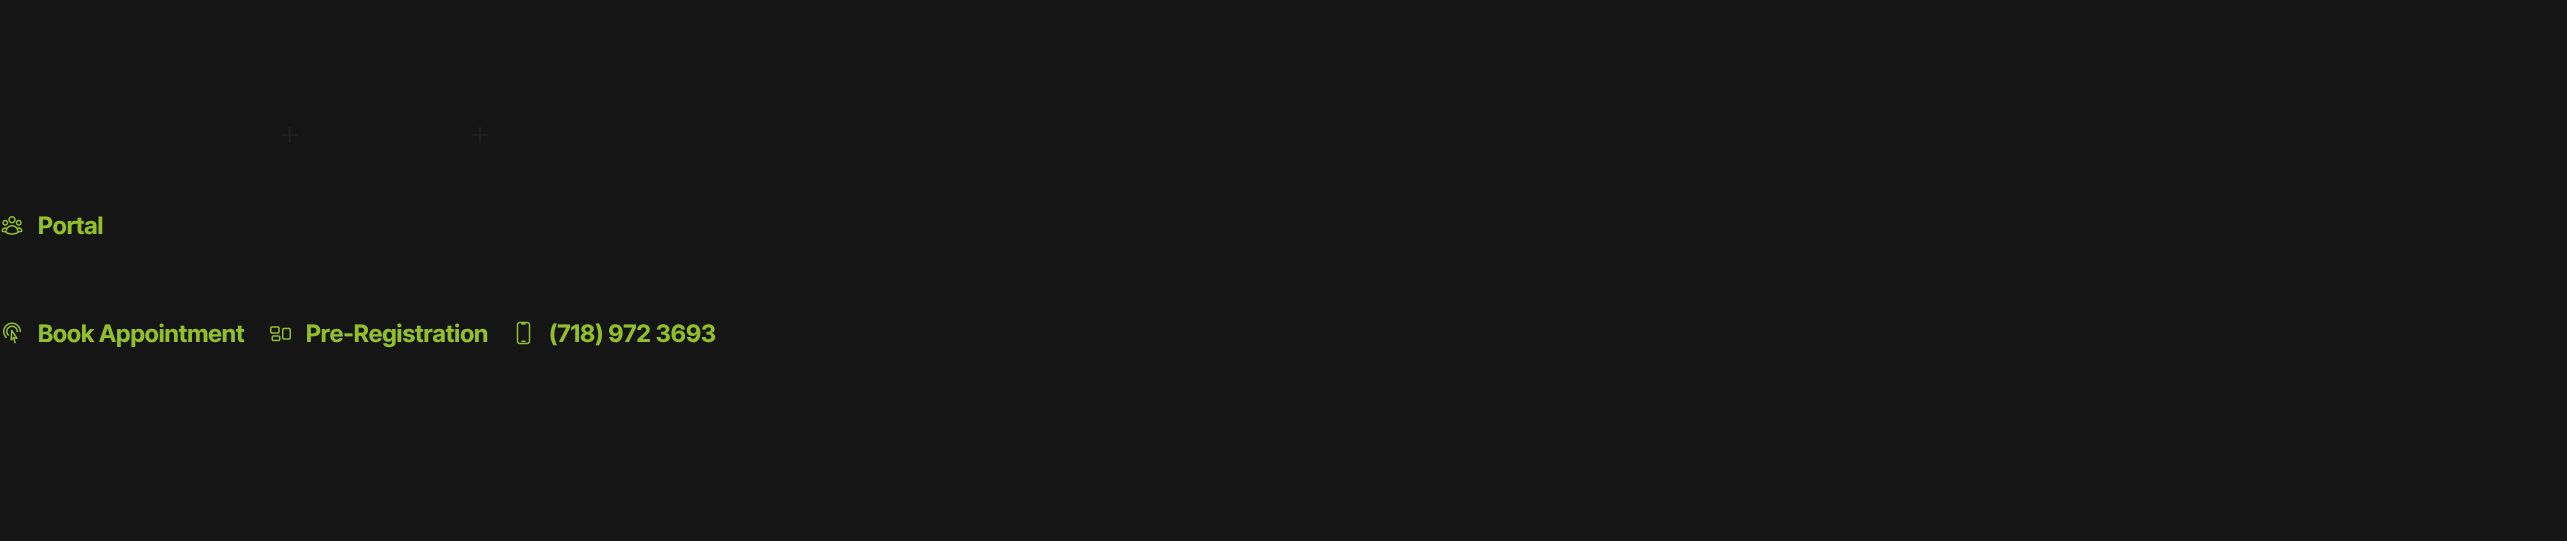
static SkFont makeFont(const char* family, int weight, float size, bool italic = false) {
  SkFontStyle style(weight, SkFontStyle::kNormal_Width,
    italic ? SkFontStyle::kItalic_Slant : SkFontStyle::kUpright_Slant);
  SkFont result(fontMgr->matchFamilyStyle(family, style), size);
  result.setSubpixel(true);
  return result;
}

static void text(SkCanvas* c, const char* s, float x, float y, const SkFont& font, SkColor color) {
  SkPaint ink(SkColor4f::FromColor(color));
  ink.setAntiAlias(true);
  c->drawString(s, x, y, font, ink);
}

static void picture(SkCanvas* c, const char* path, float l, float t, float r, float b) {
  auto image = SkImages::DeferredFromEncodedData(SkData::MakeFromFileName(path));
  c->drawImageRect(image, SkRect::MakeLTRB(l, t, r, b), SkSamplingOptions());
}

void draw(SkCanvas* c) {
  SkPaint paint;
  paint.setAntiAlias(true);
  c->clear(0xff151515);
  picture(c, "img_01.png", 281, 127, 298, 143);
  picture(c, "img_02.png", 472, 127, 488, 143);
  picture(c, "img_03.png", 1, 216, 23, 235);
  SkFont face1 = makeFont("Inter Tight", 700, 24);
  text(c, "Portal", 38, 234, face1, 0xff92bf29);
  picture(c, "img_04.png", 3, 322, 21, 344);
  text(c, "Book Appointment", 38, 342, face1, 0xff92bf29);
  picture(c, "img_05.png", 270, 326, 291, 342);
  text(c, "Pre-Registration", 306, 342, face1, 0xff92bf29);
  picture(c, "img_06.png", 516, 321, 531, 345);
  text(c, "(718) 972 3693", 549, 342, face1, 0xff92bf29);
}
